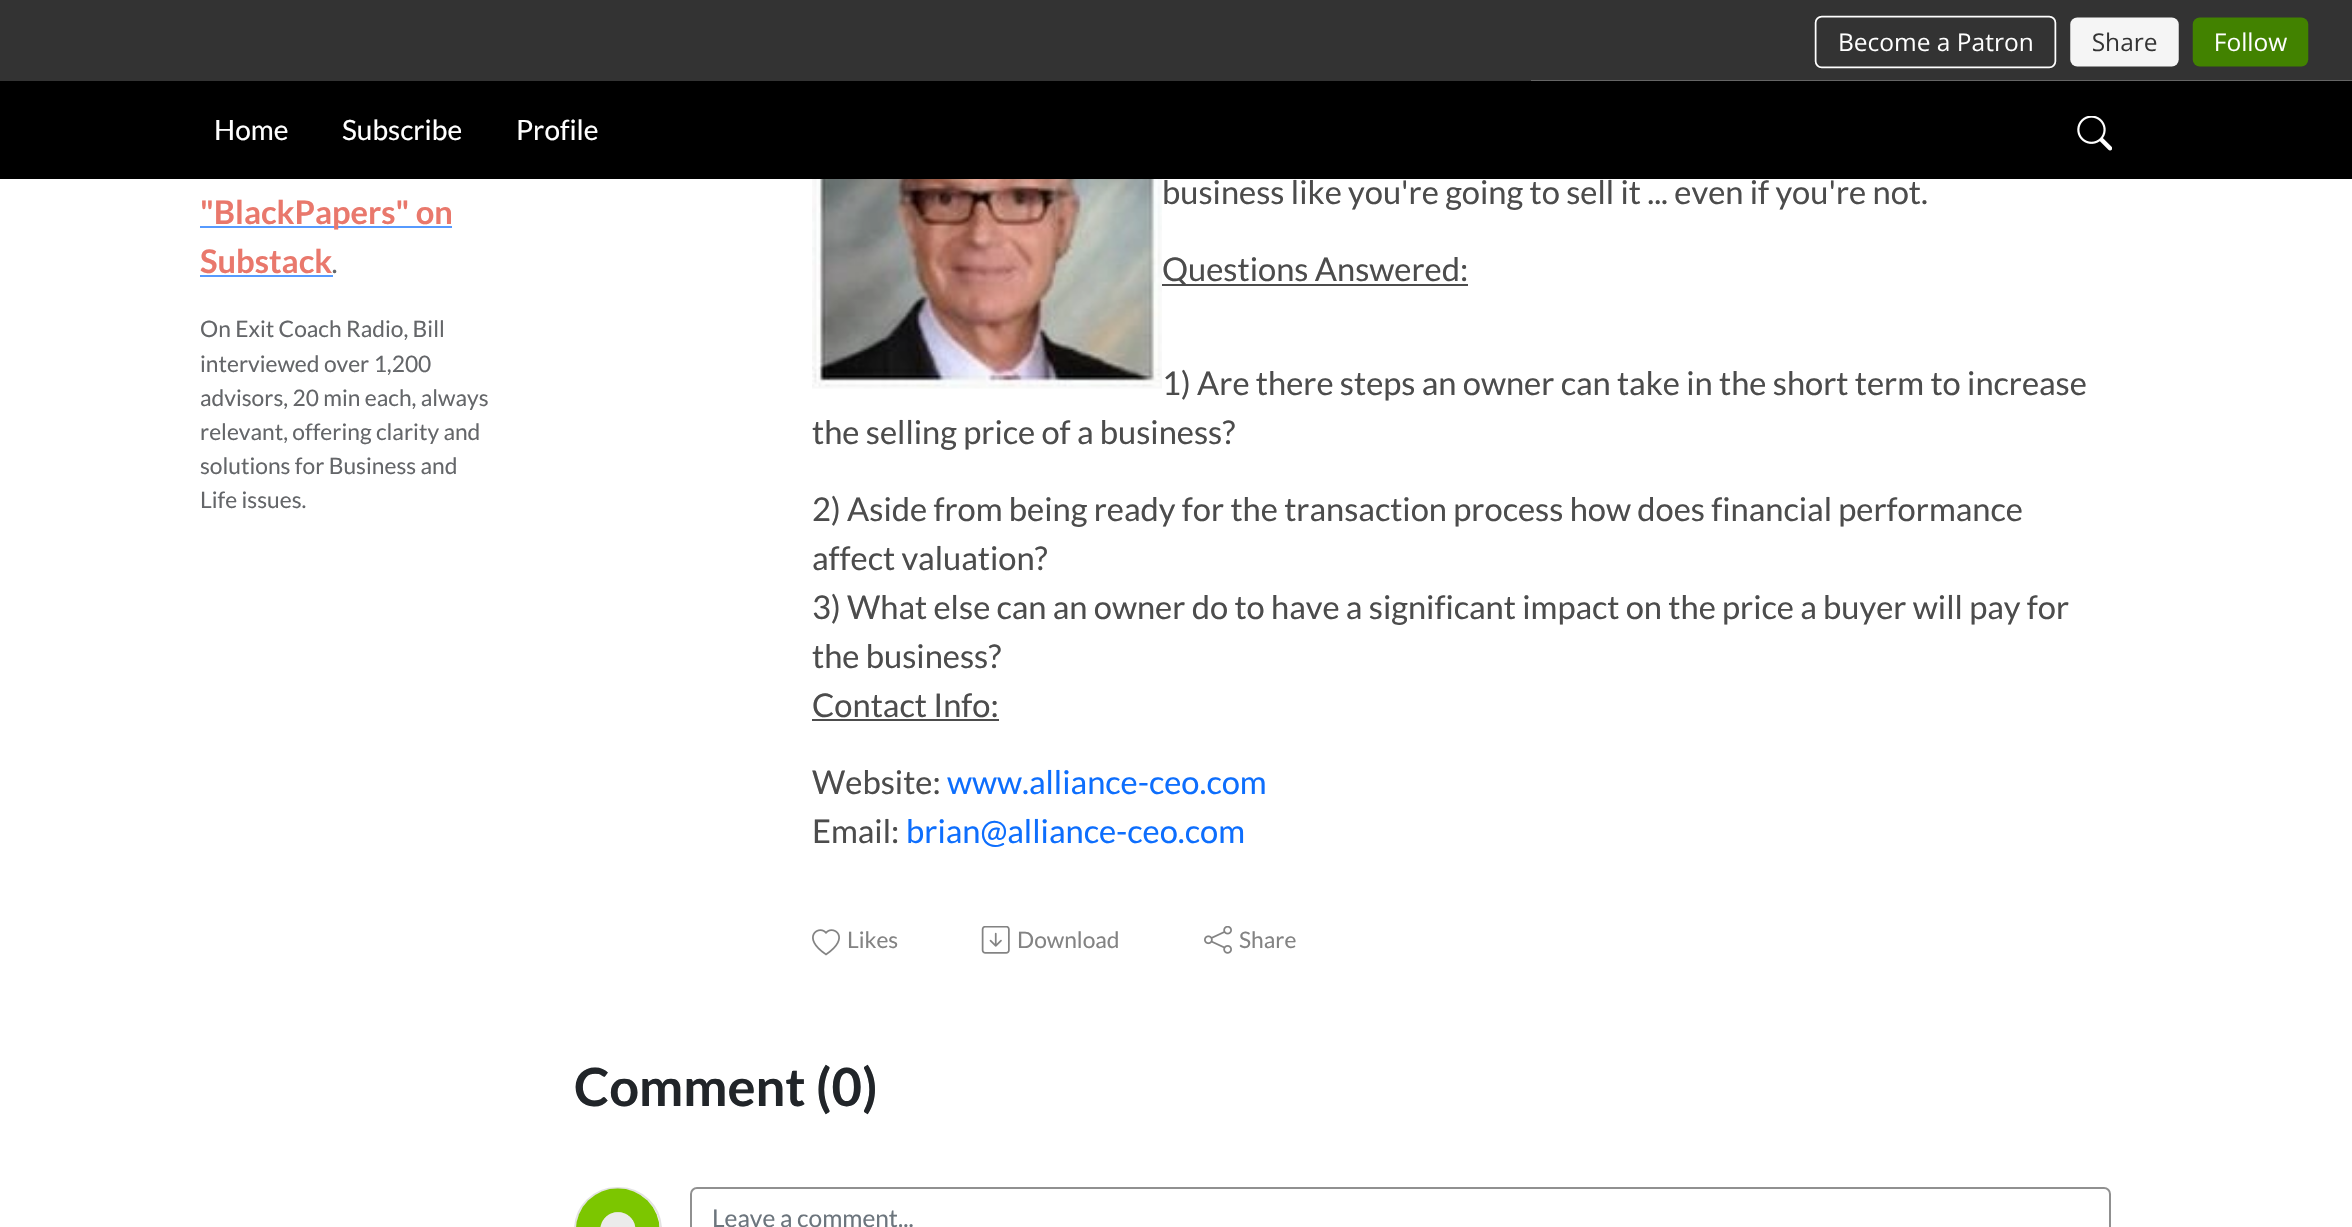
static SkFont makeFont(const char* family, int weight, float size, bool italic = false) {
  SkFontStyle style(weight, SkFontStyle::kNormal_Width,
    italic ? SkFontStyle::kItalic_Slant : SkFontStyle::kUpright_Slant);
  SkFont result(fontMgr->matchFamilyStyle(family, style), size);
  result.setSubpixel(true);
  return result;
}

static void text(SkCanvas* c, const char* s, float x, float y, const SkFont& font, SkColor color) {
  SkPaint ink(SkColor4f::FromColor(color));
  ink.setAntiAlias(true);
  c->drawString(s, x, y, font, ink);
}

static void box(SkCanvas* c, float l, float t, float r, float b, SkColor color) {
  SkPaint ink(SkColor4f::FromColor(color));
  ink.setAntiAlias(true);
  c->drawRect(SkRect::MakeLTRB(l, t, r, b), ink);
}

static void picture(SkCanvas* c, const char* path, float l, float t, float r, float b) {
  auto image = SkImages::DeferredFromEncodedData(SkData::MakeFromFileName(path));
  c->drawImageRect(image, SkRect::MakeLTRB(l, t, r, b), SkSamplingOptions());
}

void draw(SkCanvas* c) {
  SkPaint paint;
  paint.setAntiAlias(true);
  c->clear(0xffffffff);
  box(c, 0, 0, 2352, 81, 0xff333333);
  picture(c, "img_01.png", 1531, 15, 2352, 81);
  box(c, 0, 81, 2352, 179, 0xff000000);
  SkFont face1 = makeFont("Lato", 400, 28);
  text(c, "Home", 214, 140, face1, 0xffffffff);
  text(c, "Subscribe", 342, 140, face1, 0xffffffff);
  text(c, "Profile", 516, 140, face1, 0xffffffff);
  picture(c, "img_02.png", 2077, 116, 2112, 151);
  box(c, 200, 226, 452, 228, 0xff569afe);
  SkFont face2 = makeFont("Lato", 700, 32.65f);
  text(c, "\"BlackPapers\" on", 200, 224, face2, 0xffe9786c);
  text(c, "Substack", 200, 273, face2, 0xffe9786c);
  SkFont face3 = makeFont("Lato", 700, 22.75f);
  text(c, ".", 332, 273, face3, 0xff646669);
  box(c, 200, 275, 333, 277, 0xff569afe);
  SkFont face4 = makeFont("Lato", 400, 22.75f);
  text(c, "On Exit Coach Radio, Bill", 200, 337, face4, 0xff646669);
  text(c, "interviewed over 1,200", 200, 372, face4, 0xff646669);
  text(c, "advisors, 20 min each, always", 200, 406, face4, 0xff646669);
  text(c, "relevant, offering clarity and", 200, 440, face4, 0xff646669);
  text(c, "solutions for Business and", 200, 474, face4, 0xff646669);
  text(c, "Life issues.", 200, 508, face4, 0xff646669);
  picture(c, "img_03.png", 812, 179, 1162, 389);
  SkFont face5 = makeFont("Lato", 400, 32.65f);
  text(c, "business like you're going to sell it ... even if you're not.", 1162, 204, face5, 0xff4c4c4c);
  box(c, 1162, 284, 1468, 286, 0xff4c4c4c);
  text(c, "Questions Answered:", 1162, 281, face5, 0xff4c4c4c);
  text(c, "1) Are there steps an owner can take in the short term to increase", 1162, 395, face5, 0xff4c4c4c);
  text(c, "the selling price of a business?", 812, 444, face5, 0xff4c4c4c);
  text(c, "2) Aside from being ready for the transaction process how does financial performance", 812, 521, face5, 0xff4c4c4c);
  text(c, "affect valuation?", 812, 570, face5, 0xff4c4c4c);
  text(c, "3) What else can an owner do to have a significant impact on the price a buyer will pay for", 812, 619, face5, 0xff4c4c4c);
  text(c, "the business?", 812, 668, face5, 0xff4c4c4c);
  text(c, "Contact Info:", 812, 717, face5, 0xff4c4c4c);
  box(c, 812, 719, 999, 721, 0xff4c4c4c);
  text(c, "Website:", 812, 794, face5, 0xff4c4c4c);
  text(c, "www.alliance-ceo.com", 947, 794, face5, 0xff0d6efd);
  text(c, "Email:", 812, 843, face5, 0xff4c4c4c);
  text(c, "brian@alliance-ceo.com", 906, 843, face5, 0xff0d6efd);
  picture(c, "img_04.png", 812, 929, 840, 956);
  text(c, "Likes", 847, 948, face4, 0xff838383);
  picture(c, "img_05.png", 981, 926, 1010, 954);
  text(c, "Download", 1017, 948, face4, 0xff838383);
  picture(c, "img_06.png", 1204, 926, 1232, 954);
  text(c, "Share", 1239, 948, face4, 0xff838383);
  SkFont face6 = makeFont("Lato", 700, 52.5f);
  text(c, "Comment (0)", 574, 1106, face6, 0xff212529);
  paint.setStyle(SkPaint::kStroke_Style);
  paint.setStrokeWidth(2);
  paint.setColor(0xffe3e3e3);
  c->drawRoundRect(SkRect::MakeLTRB(575, 1188, 661, 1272), 42.5f, 42.5f, paint);
  picture(c, "img_07.png", 576, 1188, 660, 1227);
  paint.setColor(0xff909090);
  c->drawRoundRect(SkRect::MakeLTRB(691, 1188, 2110, 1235), 6, 6, paint);
  SkFont face7 = makeFont("Lato", 400, 24.5f);
  text(c, "Leave a comment...", 712, 1227, face7, 0xff6c757d);
}
